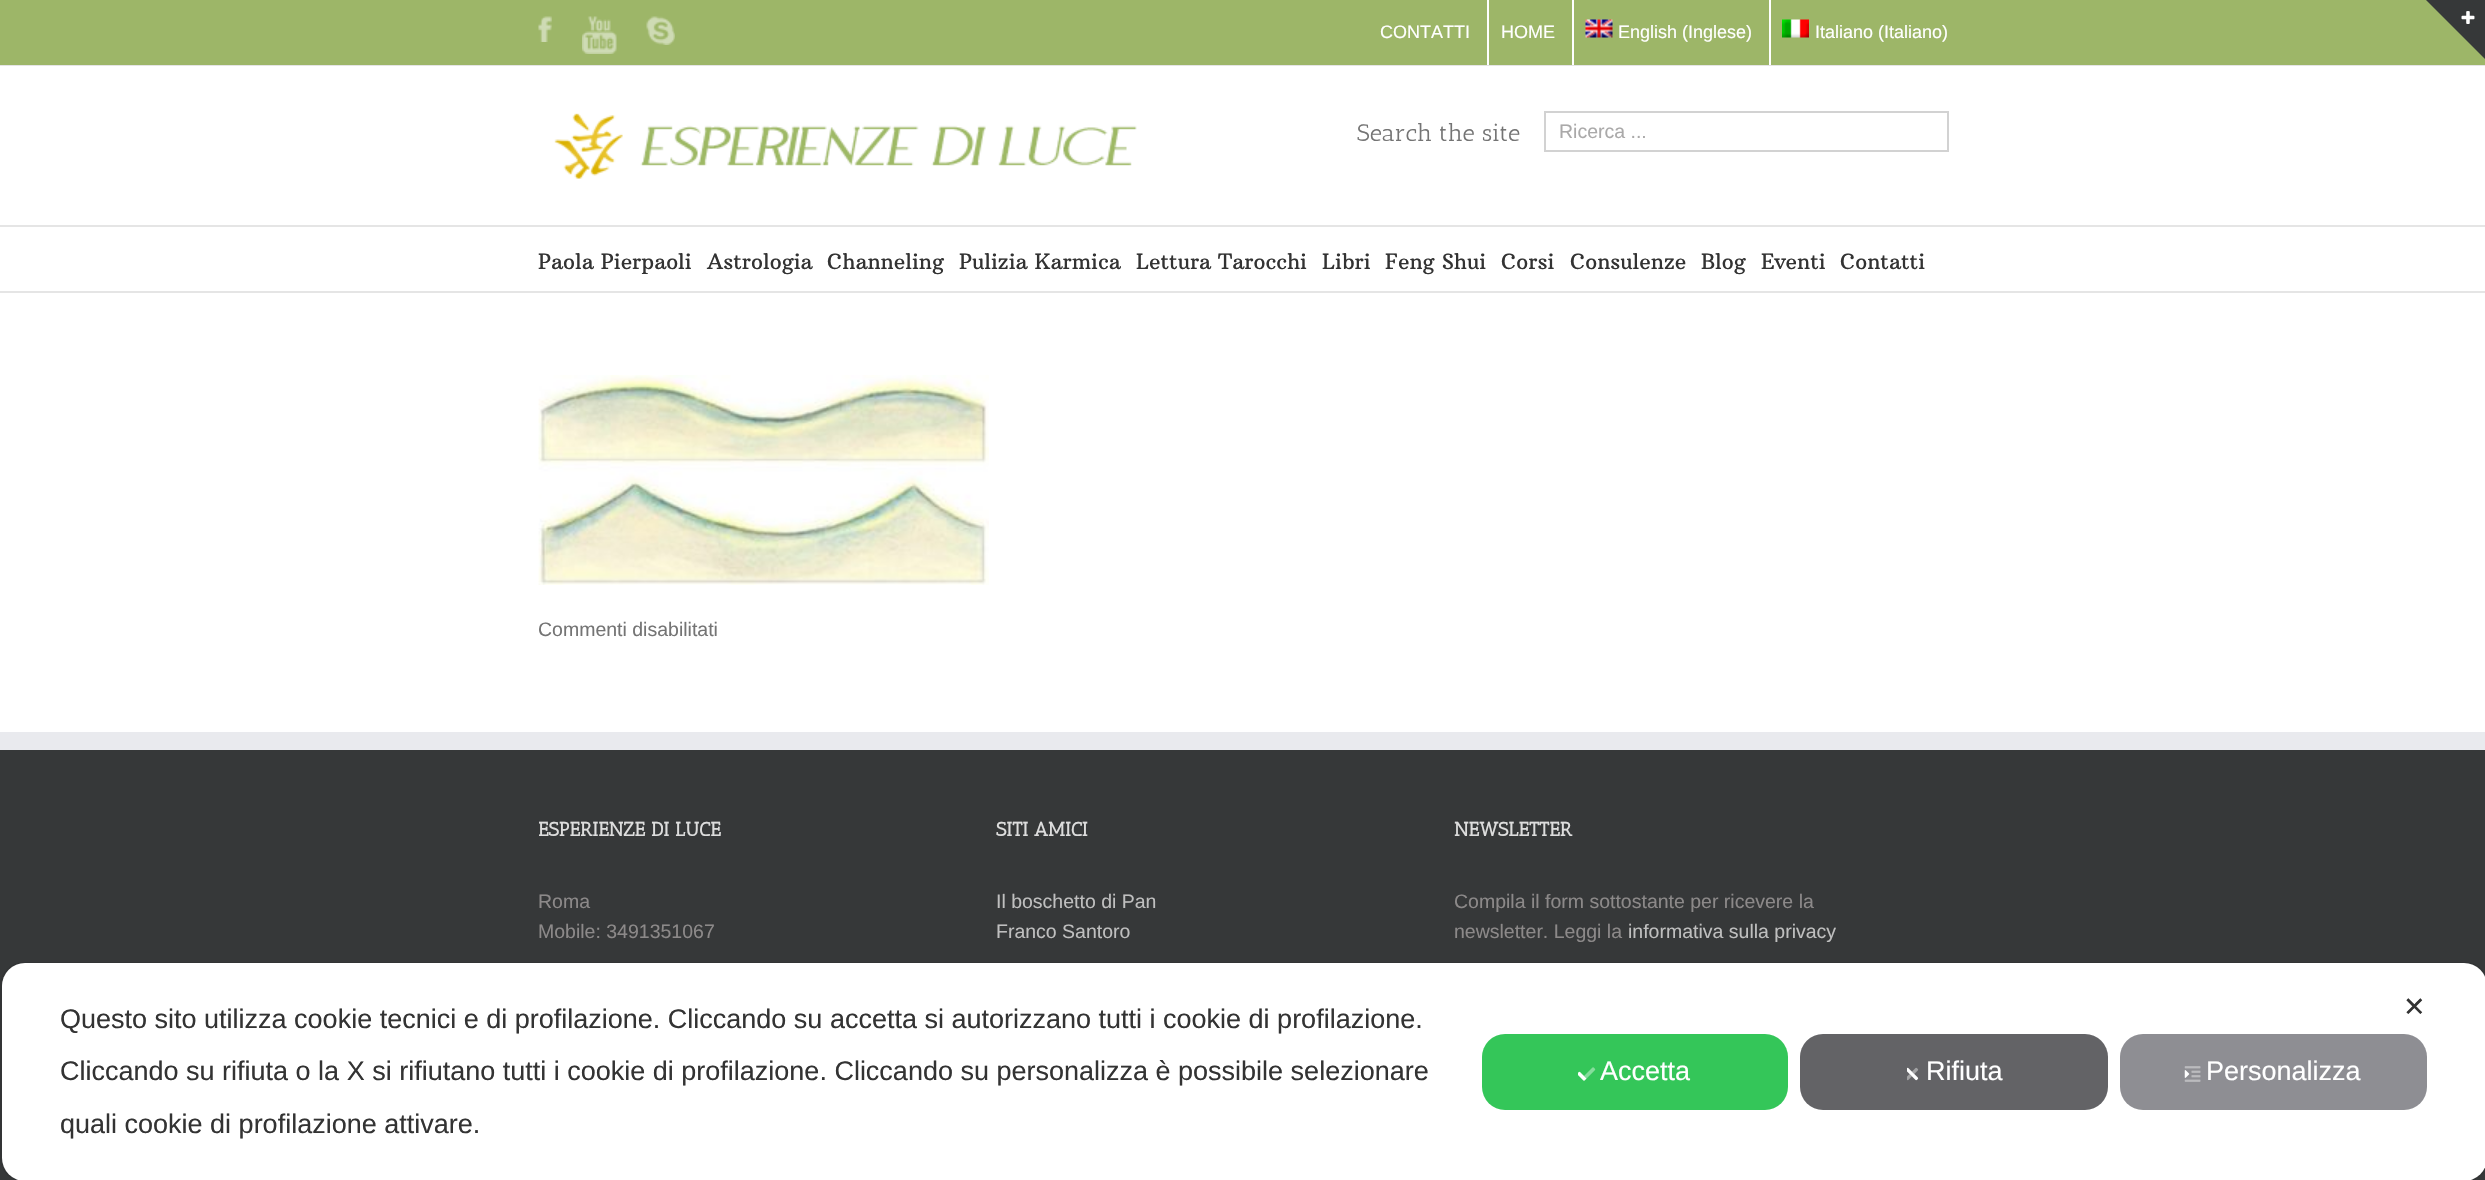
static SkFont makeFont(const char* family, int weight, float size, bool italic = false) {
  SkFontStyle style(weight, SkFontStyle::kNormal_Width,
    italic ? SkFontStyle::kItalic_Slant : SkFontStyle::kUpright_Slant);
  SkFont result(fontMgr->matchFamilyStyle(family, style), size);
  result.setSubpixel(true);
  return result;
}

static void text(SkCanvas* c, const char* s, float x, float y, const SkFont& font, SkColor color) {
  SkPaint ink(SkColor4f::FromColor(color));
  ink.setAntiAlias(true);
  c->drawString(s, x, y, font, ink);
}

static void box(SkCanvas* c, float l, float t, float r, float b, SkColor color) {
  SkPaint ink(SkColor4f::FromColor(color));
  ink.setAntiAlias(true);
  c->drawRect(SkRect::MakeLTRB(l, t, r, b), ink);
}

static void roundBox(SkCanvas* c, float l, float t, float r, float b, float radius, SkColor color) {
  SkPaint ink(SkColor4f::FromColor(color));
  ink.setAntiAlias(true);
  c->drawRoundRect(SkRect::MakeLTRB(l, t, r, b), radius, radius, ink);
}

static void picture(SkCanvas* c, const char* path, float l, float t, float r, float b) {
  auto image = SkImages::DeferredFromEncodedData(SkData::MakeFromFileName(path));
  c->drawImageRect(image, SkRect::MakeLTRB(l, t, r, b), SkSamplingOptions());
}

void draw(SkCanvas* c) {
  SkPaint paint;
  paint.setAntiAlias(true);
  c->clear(0xffffffff);
  box(c, 0, 0, 2485, 65, 0xff9db668);
  box(c, 0, 65, 2485, 66, 0xffe5e5e5);
  picture(c, "img_01.png", 538, 16, 552, 42);
  picture(c, "img_02.png", 582, 16, 617, 54);
  picture(c, "img_03.png", 646, 16, 675, 45);
  SkFont face1 = makeFont("Liberation Sans", 400, 18);
  text(c, "CONTATTI", 1380, 38, face1, 0xffffffff);
  box(c, 1487, 0, 1489, 65, 0xffffffff);
  text(c, "HOME", 1501, 38, face1, 0xffffffff);
  box(c, 1572, 0, 1574, 65, 0xffffffff);
  picture(c, "img_04.png", 1585, 19, 1613, 38);
  text(c, "English (Inglese)", 1618, 38, face1, 0xffffffff);
  box(c, 1769, 0, 1771, 65, 0xffffffff);
  picture(c, "img_05.png", 1782, 19, 1809, 38);
  text(c, "Italiano (Italiano)", 1815, 38, face1, 0xffffffff);
  box(c, 0, 225, 2485, 227, 0xffe5e5e5);
  picture(c, "img_06.png", 554, 113, 1137, 179);
  SkFont face2 = makeFont("Antic Slab", 400, 24);
  text(c, "Search the site", 1357, 141, face2, 0xff747474);
  paint.setStyle(SkPaint::kStroke_Style);
  paint.setStrokeWidth(2);
  paint.setColor(0xffd2d2d2);
  c->drawRect(SkRect::MakeLTRB(1545, 112, 1948, 151), paint);
  SkFont face3 = makeFont("Liberation Sans", 400, 19.5f);
  text(c, "Ricerca ...", 1559, 138, face3, 0xffaaa9a9);
  box(c, 0, 291, 2485, 293, 0xffe5e5e5);
  SkFont face4 = makeFont("Arbutus Slab", 400, 21);
  text(c, "Paola Pierpaoli", 538, 269, face4, 0xff333333);
  text(c, "Astrologia", 707, 269, face4, 0xff333333);
  text(c, "Channeling", 827, 269, face4, 0xff333333);
  text(c, "Pulizia Karmica", 959, 269, face4, 0xff333333);
  text(c, "Lettura Tarocchi", 1136, 269, face4, 0xff333333);
  text(c, "Libri", 1322, 269, face4, 0xff333333);
  text(c, "Feng Shui", 1385, 269, face4, 0xff333333);
  text(c, "Corsi", 1501, 269, face4, 0xff333333);
  text(c, "Consulenze", 1570, 269, face4, 0xff333333);
  text(c, "Blog", 1701, 269, face4, 0xff333333);
  text(c, "Eventi", 1761, 269, face4, 0xff333333);
  text(c, "Contatti", 1840, 269, face4, 0xff333333);
  paint.setStyle(SkPaint::kFill_Style);
  paint.setColor(0xff363839);
  c->drawPath(SkPathBuilder().moveTo(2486, 0).lineTo(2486, 60).lineTo(2426, 0).close().detach(), paint);
  picture(c, "img_07.png", 2461, 11, 2475, 24);
  picture(c, "img_08.png", 538, 375, 989, 585);
  text(c, "Commenti disabilitati", 538, 636, face3, 0xff747474);
  box(c, 0, 750, 2485, 1180, 0xff363839);
  box(c, 0, 732, 2485, 750, 0xffe9eaee);
  c->save();
  c->clipRect(SkRect::MakeLTRB(539, 815, 1949, 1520));
  SkFont face5 = makeFont("Antic Slab", 700, 19.5f);
  text(c, "ESPERIENZE DI LUCE", 538, 836, face5, 0xffdddddd);
  c->restore();
  text(c, "Roma", 538, 908, face3, 0xff8c8989);
  text(c, "Mobile: 3491351067", 538, 938, face3, 0xff8c8989);
  text(c, "SITI AMICI", 996, 836, face5, 0xffdddddd);
  text(c, "Il boschetto di Pan", 996, 908, face3, 0xffbfbfbf);
  text(c, "Franco Santoro", 996, 938, face3, 0xffbfbfbf);
  text(c, "NEWSLETTER", 1454, 836, face5, 0xffdddddd);
  text(c, "Compila il form sottostante per ricevere la", 1454, 908, face3, 0xff8c8989);
  text(c, "newsletter. Leggi la", 1454, 938, face3, 0xff8c8989);
  text(c, "informativa sulla privacy", 1628, 938, face3, 0xffbfbfbf);
  paint.setStyle(SkPaint::kStroke_Style);
  paint.setColor(0x14000000);
  c->drawRoundRect(SkRect::MakeLTRB(1, 963, 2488, 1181), 23, 23, paint);
  roundBox(c, 2, 963, 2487, 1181, 23, 0xffffffff);
  SkFont face6 = makeFont("DejaVu Sans", 400, 27);
  text(c, "✕", 2403, 1016, face6, 0xff333333);
  SkFont face7 = makeFont("Liberation Sans", 400, 27);
  text(c, "Questo sito utilizza cookie tecnici e di profilazione. Cliccando su accetta si autorizzano tutti i cookie di profilazione.", 60, 1028, face7, 0xff333333);
  text(c, "Cliccando su rifiuta o la X si rifiutano tutti i cookie di profilazione. Cliccando su personalizza è possibile selezionare", 60, 1080, face7, 0xff333333);
  text(c, "quali cookie di profilazione attivare.", 60, 1133, face7, 0xff333333);
  roundBox(c, 1482, 1034, 1788, 1110, 23, 0xff34c659);
  picture(c, "img_09.png", 1578, 1067, 1596, 1081);
  text(c, "Accetta", 1600, 1080, face7, 0xffffffff);
  roundBox(c, 1800, 1034, 2108, 1110, 23, 0xff636366);
  picture(c, "img_10.png", 1907, 1067, 1919, 1081);
  text(c, "Rifiuta", 1926, 1080, face7, 0xffffffff);
  roundBox(c, 2120, 1034, 2427, 1110, 23, 0xff8e8e93);
  picture(c, "img_11.png", 2184, 1066, 2201, 1082);
  text(c, "Personalizza", 2206, 1080, face7, 0xffffffff);
}
